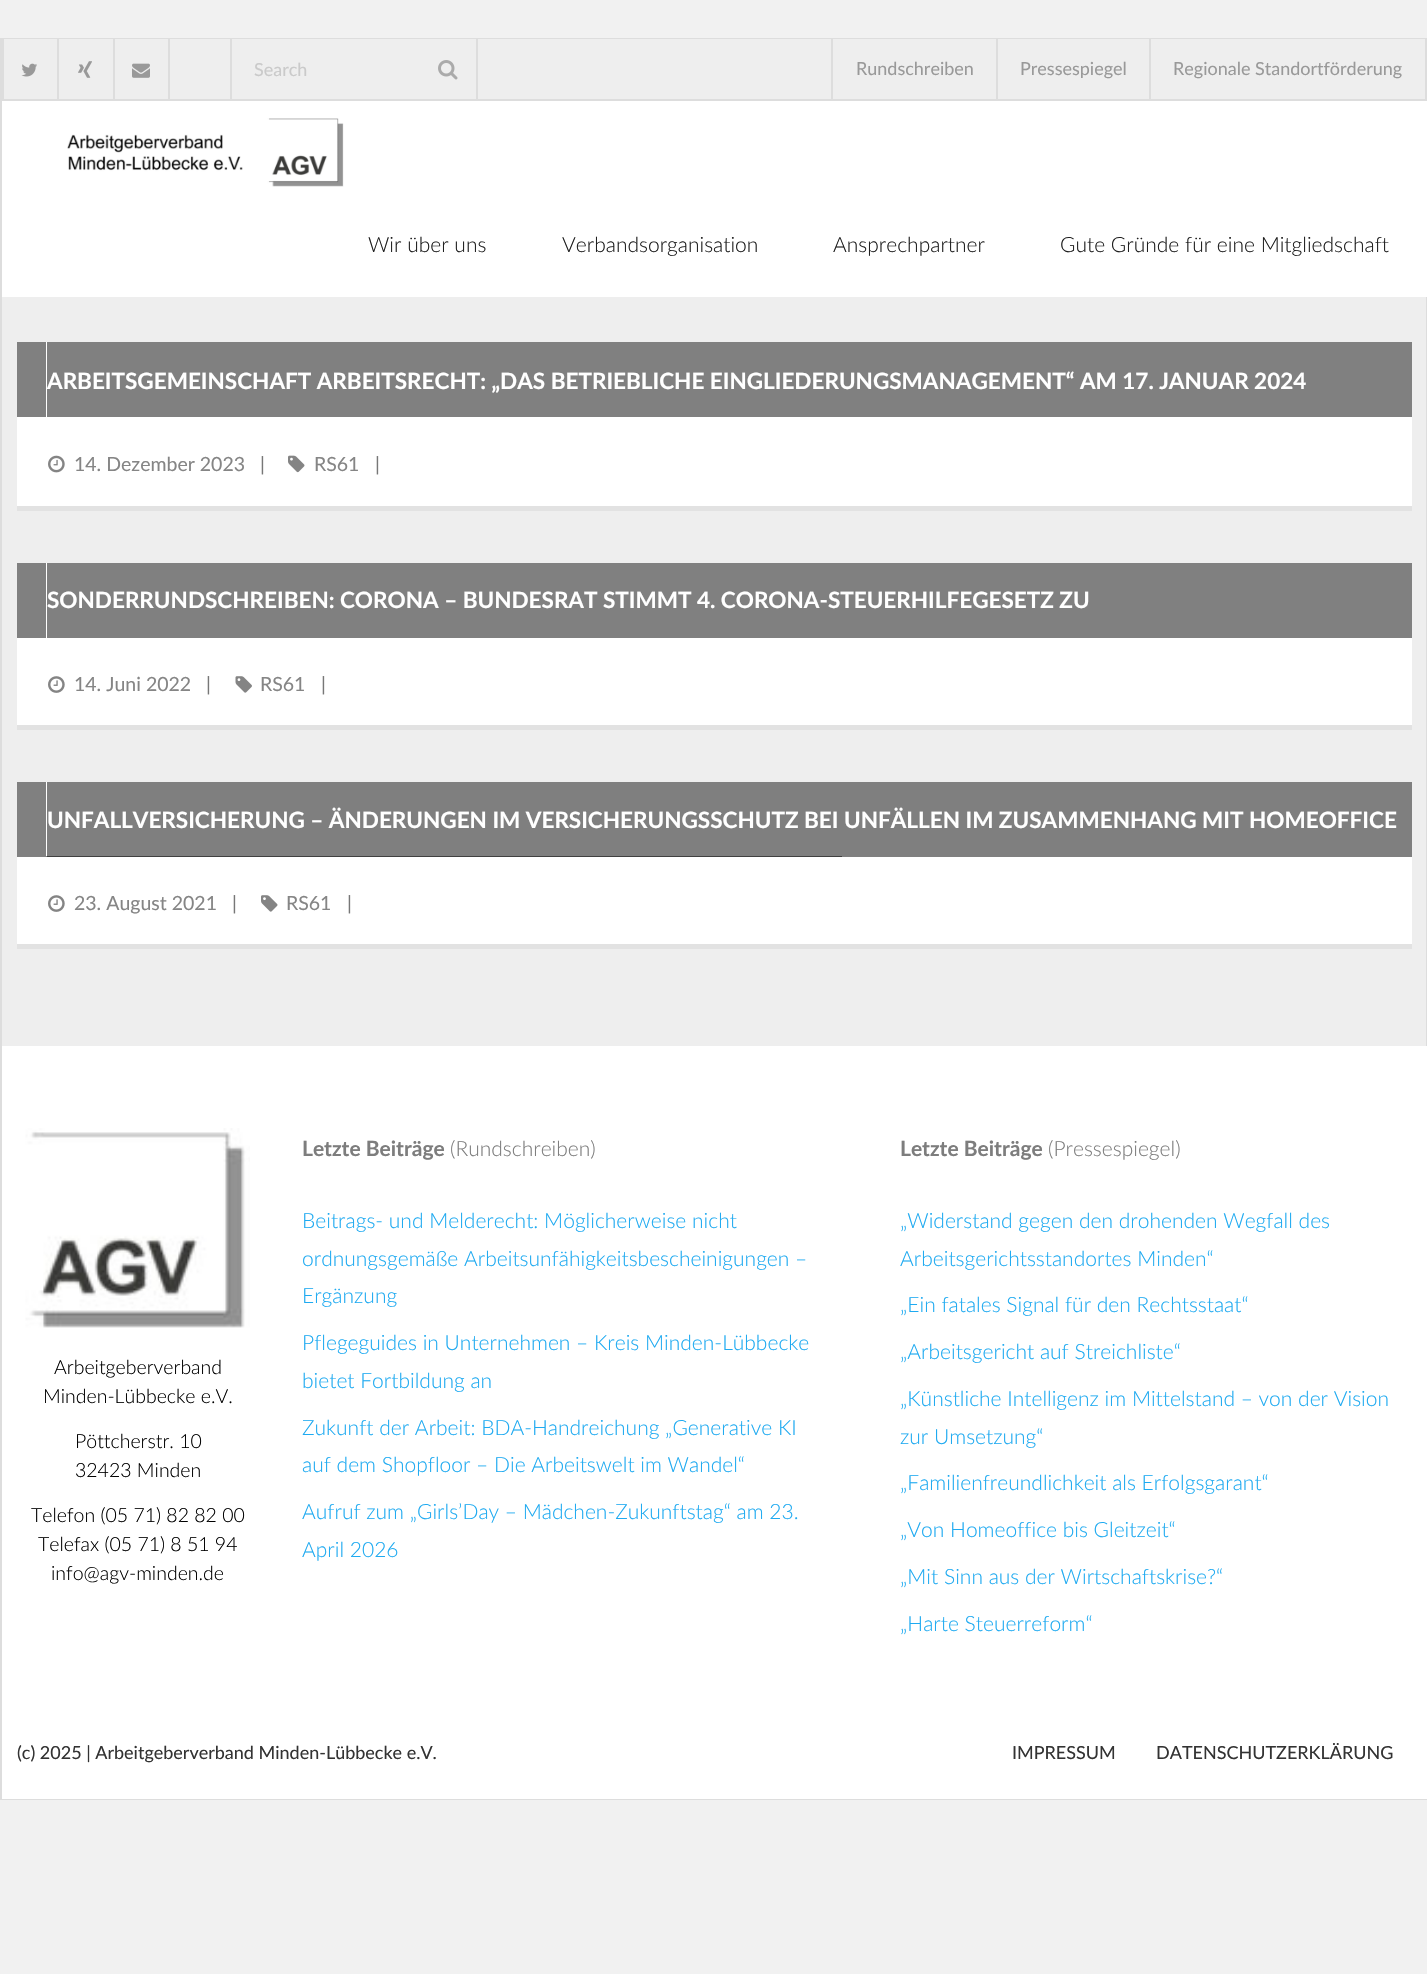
static SkFont makeFont(const char* family, int weight, float size, bool italic = false) {
  SkFontStyle style(weight, SkFontStyle::kNormal_Width,
    italic ? SkFontStyle::kItalic_Slant : SkFontStyle::kUpright_Slant);
  SkFont result(fontMgr->matchFamilyStyle(family, style), size);
  result.setSubpixel(true);
  return result;
}

static void text(SkCanvas* c, const char* s, float x, float y, const SkFont& font, SkColor color) {
  SkPaint ink(SkColor4f::FromColor(color));
  ink.setAntiAlias(true);
  c->drawString(s, x, y, font, ink);
}

static void box(SkCanvas* c, float l, float t, float r, float b, SkColor color) {
  SkPaint ink(SkColor4f::FromColor(color));
  ink.setAntiAlias(true);
  c->drawRect(SkRect::MakeLTRB(l, t, r, b), ink);
}

static void picture(SkCanvas* c, const char* path, float l, float t, float r, float b) {
  auto image = SkImages::DeferredFromEncodedData(SkData::MakeFromFileName(path));
  c->drawImageRect(image, SkRect::MakeLTRB(l, t, r, b), SkSamplingOptions());
}

void draw(SkCanvas* c) {
  SkPaint paint;
  paint.setAntiAlias(true);
  c->clear(0xfff1f1f1);
  box(c, 2, 297, 1426, 1046, 0xffeeeeee);
  paint.setStyle(SkPaint::kStroke_Style);
  paint.setStrokeWidth(2);
  paint.setColor(0xffdddddd);
  c->drawRect(SkRect::MakeLTRB(1, 39, 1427, 1799), paint);
  box(c, 4, 39, 1425, 99, 0xffeeeeee);
  box(c, 2, 99, 1427, 101, 0xffdddddd);
  box(c, 2, 39, 4, 99, 0xffdddddd);
  picture(c, "img_01.png", 21, 63, 37, 77);
  box(c, 57, 39, 59, 99, 0xffdddddd);
  picture(c, "img_02.png", 78, 61, 92, 78);
  box(c, 168, 39, 170, 99, 0xffdddddd);
  box(c, 113, 39, 115, 99, 0xffdddddd);
  picture(c, "img_03.png", 132, 63, 150, 78);
  box(c, 476, 39, 478, 99, 0xffdddddd);
  box(c, 230, 39, 232, 99, 0xffdddddd);
  SkFont face1 = makeFont("Lato", 400, 18);
  text(c, "Search", 254, 76, face1, 0xffcacaca);
  picture(c, "img_04.png", 438, 60, 458, 80);
  box(c, 831, 39, 833, 99, 0xffdddddd);
  text(c, "Rundschreiben", 856, 75, face1, 0xff999999);
  box(c, 996, 39, 998, 99, 0xffdddddd);
  text(c, "Pressespiegel", 1020, 75, face1, 0xff999999);
  box(c, 1425, 39, 1426, 99, 0xffdddddd);
  box(c, 1149, 39, 1151, 99, 0xffdddddd);
  text(c, "Regionale Standortförderung", 1173, 75, face1, 0xff999999);
  box(c, 2, 101, 1427, 297, 0xffffffff);
  picture(c, "img_05.png", 67, 118, 344, 187);
  SkFont face2 = makeFont("Lato", 300, 21);
  text(c, "Wir über uns", 368, 252, face2, 0xff1e1e1e);
  text(c, "Verbandsorganisation", 562, 252, face2, 0xff1e1e1e);
  text(c, "Ansprechpartner", 833, 252, face2, 0xff1e1e1e);
  text(c, "Gute Gründe für eine Mitgliedschaft", 1060, 252, face2, 0xff1e1e1e);
  box(c, 17, 342, 1412, 506, 0xffffffff);
  box(c, 17, 506, 1412, 511, 0xffe2e2e2);
  box(c, 17, 342, 46, 417, 0xff808080);
  box(c, 47, 342, 1412, 417, 0xff808080);
  SkFont face3 = makeFont("Lato", 700, 22.5f);
  text(c, "ARBEITSGEMEINSCHAFT ARBEITSRECHT: „DAS BETRIEBLICHE EINGLIEDERUNGSMANAGEMENT“ AM 17. JANUAR 2024", 47, 389, face3, 0xffffffff);
  picture(c, "img_06.png", 48, 455, 65, 473);
  SkFont face4 = makeFont("Lato", 400, 19.5f);
  text(c, "14. Dezember 2023", 74, 471, face4, 0xff858585);
  text(c, "|", 260, 471, face4, 0xff777777);
  picture(c, "img_07.png", 288, 455, 305, 473);
  text(c, "RS61", 314, 471, face4, 0xff858585);
  text(c, "|", 375, 471, face4, 0xff777777);
  box(c, 17, 563, 1412, 725, 0xffffffff);
  box(c, 17, 725, 1412, 730, 0xffe2e2e2);
  c->save();
  c->clipRect(SkRect::MakeLTRB(17, 563, 1412, 782));
  paint.setStyle(SkPaint::kFill_Style);
  paint.setColor(0xff808080);
  c->drawPath(SkPathBuilder().moveTo(-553, 563).lineTo(-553, 638).lineTo(842, 638).lineTo(46, 638).lineTo(46, 563).close().detach(), paint);
  c->restore();
  box(c, 47, 563, 1412, 638, 0xff808080);
  text(c, "SONDERRUNDSCHREIBEN: CORONA – BUNDESRAT STIMMT 4. CORONA-STEUERHILFEGESETZ ZU", 47, 608, face3, 0xffffffff);
  picture(c, "img_08.png", 48, 676, 65, 693);
  text(c, "14. Juni 2022", 74, 691, face4, 0xff858585);
  text(c, "|", 206, 691, face4, 0xff777777);
  picture(c, "img_09.png", 235, 676, 252, 693);
  text(c, "RS61", 260, 691, face4, 0xff858585);
  text(c, "|", 321, 691, face4, 0xff777777);
  box(c, 17, 782, 1412, 944, 0xffffffff);
  box(c, 17, 944, 1412, 949, 0xffe2e2e2);
  c->save();
  c->clipRect(SkRect::MakeLTRB(17, 782, 1412, 1001));
  c->drawPath(SkPathBuilder().moveTo(-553, 782).lineTo(-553, 857).lineTo(842, 857).lineTo(842, 856).lineTo(46, 856).lineTo(46, 782).close().detach(), paint);
  c->restore();
  box(c, 47, 782, 1412, 857, 0x80000000);
  text(c, "UNFALLVERSICHERUNG – ÄNDERUNGEN IM VERSICHERUNGSSCHUTZ BEI UNFÄLLEN IM ZUSAMMENHANG MIT HOMEOFFICE", 47, 828, face3, 0xffffffff);
  picture(c, "img_08.png", 48, 895, 65, 912);
  text(c, "23. August 2021", 74, 910, face4, 0xff858585);
  text(c, "|", 232, 910, face4, 0xff777777);
  picture(c, "img_10.png", 261, 895, 278, 912);
  text(c, "RS61", 286, 910, face4, 0xff858585);
  text(c, "|", 347, 910, face4, 0xff777777);
  box(c, 2, 1046, 1427, 1799, 0xffffffff);
  picture(c, "img_11.png", 25, 1128, 250, 1328);
  SkFont face5 = makeFont("Lato", 300, 19.5f);
  text(c, "Arbeitgeberverband", 54, 1374, face5, 0xff000000);
  text(c, "Minden-Lübbecke e.V.", 43, 1403, face5, 0xff000000);
  text(c, "Pöttcherstr. 10", 75, 1448, face5, 0xff000000);
  text(c, "32423 Minden", 75, 1477, face5, 0xff000000);
  text(c, "Telefon (05 71) 82 82 00", 31, 1522, face5, 0xff000000);
  text(c, "Telefax (05 71) 8 51 94", 38, 1551, face5, 0xff000000);
  text(c, "info@agv-minden.de", 51, 1580, face5, 0xff000000);
  SkFont face6 = makeFont("Lato", 700, 21);
  text(c, "Letzte Beiträge", 302, 1156, face6, 0xff7d7d7d);
  text(c, "(Rundschreiben)", 450, 1156, face2, 0xff7d7d7d);
  text(c, "Beitrags- und Melderecht: Möglicherweise nicht", 302, 1228, face2, 0xff1eaaf1);
  text(c, "ordnungsgemäße Arbeitsunfähigkeitsbescheinigungen –", 302, 1266, face2, 0xff1eaaf1);
  text(c, "Ergänzung", 302, 1303, face2, 0xff1eaaf1);
  text(c, "Pflegeguides in Unternehmen – Kreis Minden-Lübbecke", 302, 1350, face2, 0xff1eaaf1);
  text(c, "bietet Fortbildung an", 302, 1388, face2, 0xff1eaaf1);
  text(c, "Zukunft der Arbeit: BDA-Handreichung „Generative KI", 302, 1435, face2, 0xff1eaaf1);
  text(c, "auf dem Shopfloor – Die Arbeitswelt im Wandel“", 302, 1472, face2, 0xff1eaaf1);
  text(c, "Aufruf zum „Girls’Day – Mädchen-Zukunftstag“ am 23.", 302, 1519, face2, 0xff1eaaf1);
  text(c, "April 2026", 302, 1557, face2, 0xff1eaaf1);
  text(c, "Letzte Beiträge", 900, 1156, face6, 0xff7d7d7d);
  text(c, "(Pressespiegel)", 1048, 1156, face2, 0xff7d7d7d);
  text(c, "„Widerstand gegen den drohenden Wegfall des", 900, 1228, face2, 0xff1eaaf1);
  text(c, "Arbeitsgerichtsstandortes Minden“", 900, 1266, face2, 0xff1eaaf1);
  text(c, "„Ein fatales Signal für den Rechtsstaat“", 900, 1312, face2, 0xff1eaaf1);
  text(c, "„Arbeitsgericht auf Streichliste“", 900, 1359, face2, 0xff1eaaf1);
  text(c, "„Künstliche Intelligenz im Mittelstand – von der Vision", 900, 1406, face2, 0xff1eaaf1);
  text(c, "zur Umsetzung“", 900, 1444, face2, 0xff1eaaf1);
  text(c, "„Familienfreundlichkeit als Erfolgsgarant“", 900, 1490, face2, 0xff1eaaf1);
  text(c, "„Von Homeoffice bis Gleitzeit“", 900, 1537, face2, 0xff1eaaf1);
  text(c, "„Mit Sinn aus der Wirtschaftskrise?“", 900, 1584, face2, 0xff1eaaf1);
  text(c, "„Harte Steuerreform“", 900, 1631, face2, 0xff1eaaf1);
  text(c, "(c) 2025 | Arbeitgeberverband Minden-Lübbecke e.V.", 17, 1759, face1, 0xff333333);
  text(c, "IMPRESSUM", 1012, 1759, face1, 0xff333333);
  text(c, "DATENSCHUTZERKLÄRUNG", 1156, 1759, face1, 0xff333333);
}
